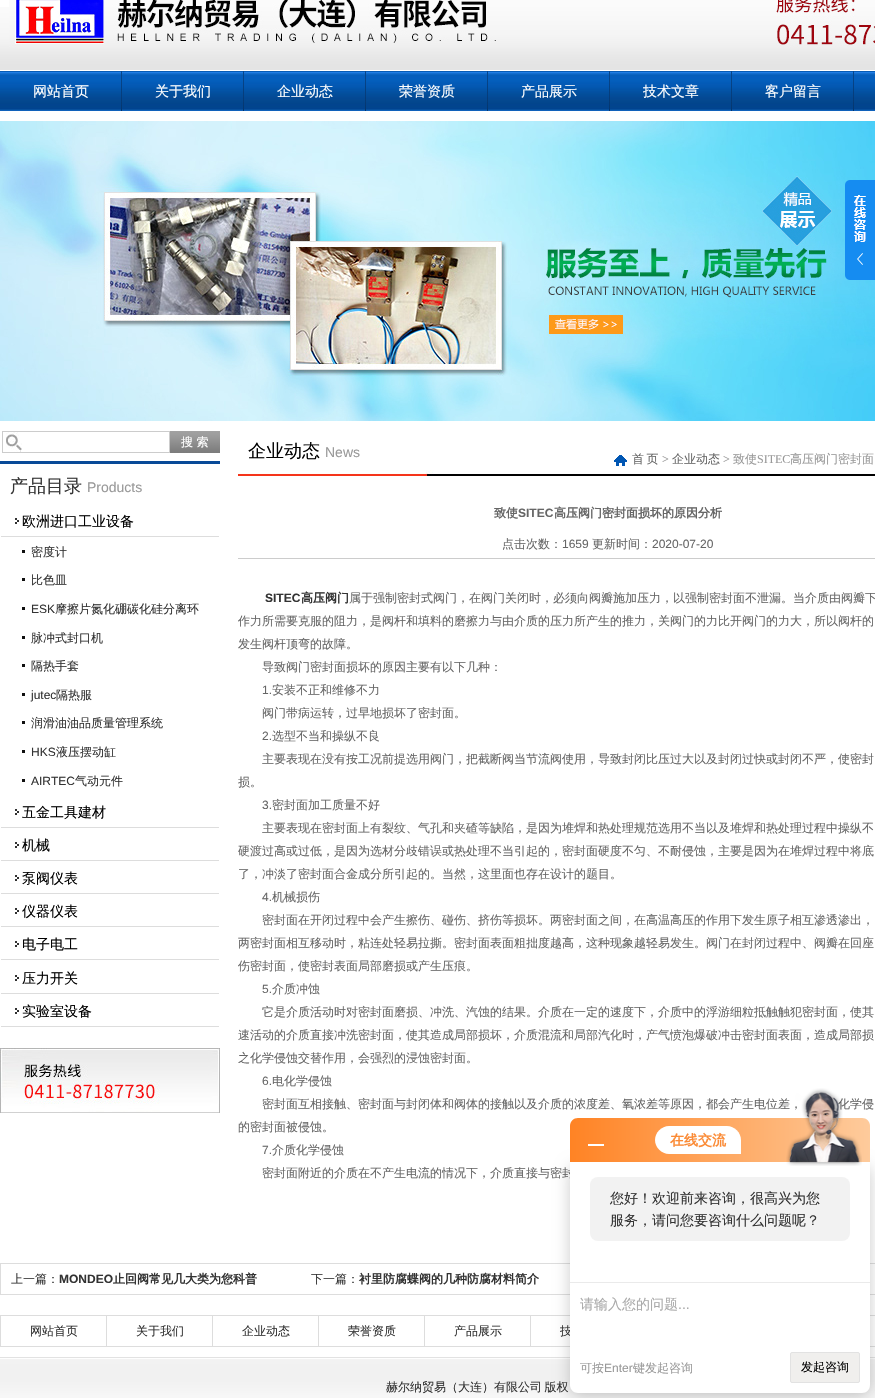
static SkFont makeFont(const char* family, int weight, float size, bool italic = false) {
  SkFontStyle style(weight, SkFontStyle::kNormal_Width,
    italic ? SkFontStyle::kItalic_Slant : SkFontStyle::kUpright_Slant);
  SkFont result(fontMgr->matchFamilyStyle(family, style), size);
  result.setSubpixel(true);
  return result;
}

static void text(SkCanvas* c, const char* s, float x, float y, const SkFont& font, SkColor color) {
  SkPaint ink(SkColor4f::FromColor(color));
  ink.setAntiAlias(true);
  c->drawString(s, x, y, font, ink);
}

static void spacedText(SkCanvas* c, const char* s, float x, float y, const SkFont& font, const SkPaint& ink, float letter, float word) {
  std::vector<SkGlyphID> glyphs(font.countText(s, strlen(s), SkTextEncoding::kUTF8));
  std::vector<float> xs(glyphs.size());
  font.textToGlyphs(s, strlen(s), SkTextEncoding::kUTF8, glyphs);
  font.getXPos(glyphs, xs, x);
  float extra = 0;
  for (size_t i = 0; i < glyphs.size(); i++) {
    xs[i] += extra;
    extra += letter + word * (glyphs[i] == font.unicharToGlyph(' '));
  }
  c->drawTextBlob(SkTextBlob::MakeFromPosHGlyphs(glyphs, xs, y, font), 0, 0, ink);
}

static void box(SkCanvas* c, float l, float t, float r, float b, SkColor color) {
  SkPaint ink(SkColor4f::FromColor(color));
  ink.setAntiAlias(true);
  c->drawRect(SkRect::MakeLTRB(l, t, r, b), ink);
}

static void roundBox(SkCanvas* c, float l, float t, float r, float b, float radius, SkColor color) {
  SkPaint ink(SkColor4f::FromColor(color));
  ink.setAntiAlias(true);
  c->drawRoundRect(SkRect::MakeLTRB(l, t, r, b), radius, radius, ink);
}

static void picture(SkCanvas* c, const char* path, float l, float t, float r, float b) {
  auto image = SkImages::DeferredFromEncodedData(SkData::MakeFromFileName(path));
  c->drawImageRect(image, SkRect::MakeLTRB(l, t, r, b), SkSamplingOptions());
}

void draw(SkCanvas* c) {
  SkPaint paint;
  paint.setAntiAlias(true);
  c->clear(0xffffffff);
  picture(c, "img_01.png", 0, 7, 875, 70);
  picture(c, "img_02.png", 9, 0, 875, 48);
  picture(c, "img_03.png", 0, 71, 875, 111);
  picture(c, "img_04.png", 121, 71, 122, 111);
  SkFont face1 = makeFont("WenQuanYi Zen Hei", 500, 14);
  text(c, "网站首页", 33, 96, face1, 0xffffffff);
  picture(c, "img_04.png", 243, 71, 244, 111);
  text(c, "关于我们", 155, 96, face1, 0xffffffff);
  picture(c, "img_04.png", 365, 71, 366, 111);
  text(c, "企业动态", 277, 96, face1, 0xffffffff);
  picture(c, "img_04.png", 487, 71, 488, 111);
  text(c, "荣誉资质", 399, 96, face1, 0xffffffff);
  picture(c, "img_04.png", 609, 71, 610, 111);
  text(c, "产品展示", 521, 96, face1, 0xffffffff);
  picture(c, "img_04.png", 731, 71, 732, 111);
  text(c, "技术文章", 643, 96, face1, 0xffffffff);
  picture(c, "img_04.png", 853, 71, 854, 111);
  text(c, "客户留言", 765, 96, face1, 0xffffffff);
  picture(c, "img_05.png", 0, 121, 875, 421);
  picture(c, "img_06.png", 845, 180, 875, 280);
  picture(c, "img_07.png", 6, 432, 22, 452);
  paint.setStyle(SkPaint::kStroke_Style);
  paint.setStrokeWidth(1);
  paint.setColor(0xffcccccc);
  c->drawRect(SkRect::MakeLTRB(2.5f, 431.5f, 169.5f, 452.5f), paint);
  picture(c, "img_08.png", 170, 431, 220, 453);
  SkFont face2 = makeFont("WenQuanYi Zen Hei", 500, 12);
  text(c, "搜 索", 181, 446, face2, 0xffffffff);
  box(c, 0, 461, 220, 464, 0xff084a98);
  SkFont face3 = makeFont("WenQuanYi Zen Hei", 500, 18);
  text(c, "产品目录", 10, 492, face3, 0xff333333);
  SkFont face4 = makeFont("Liberation Sans", 400, 14);
  text(c, "Products", 87, 492, face4, 0xff999999);
  box(c, 1, 536, 219, 537, 0xffdddddd);
  picture(c, "img_09.png", 15, 518, 19, 524);
  text(c, "欧洲进口工业设备", 22, 526, face1, 0xff000000);
  box(c, 22, 550, 25, 553, 0xff101010);
  text(c, "密度计", 31, 556, face2, 0xff333333);
  box(c, 22, 578, 25, 581, 0xff101010);
  text(c, "比色皿", 31, 584, face2, 0xff333333);
  box(c, 22, 607, 25, 610, 0xff101010);
  SkFont face5 = makeFont("Liberation Sans", 400, 12);
  text(c, "ESK", 31, 613, face5, 0xff333333);
  text(c, "摩擦片氮化硼碳化硅分离环", 55, 613, face2, 0xff333333);
  box(c, 22, 636, 25, 639, 0xff101010);
  text(c, "脉冲式封口机", 31, 642, face2, 0xff333333);
  box(c, 22, 664, 25, 667, 0xff101010);
  text(c, "隔热手套", 31, 670, face2, 0xff333333);
  box(c, 22, 693, 25, 696, 0xff101010);
  text(c, "jutec", 31, 699, face5, 0xff333333);
  text(c, "隔热服", 56, 699, face2, 0xff333333);
  box(c, 22, 721, 25, 724, 0xff101010);
  text(c, "润滑油油品质量管理系统", 31, 727, face2, 0xff333333);
  box(c, 22, 750, 25, 753, 0xff101010);
  text(c, "HKS", 31, 756, face5, 0xff333333);
  text(c, "液压摆动缸", 56, 756, face2, 0xff333333);
  box(c, 22, 779, 25, 782, 0xff101010);
  text(c, "AIRTEC", 31, 785, face5, 0xff333333);
  text(c, "气动元件", 75, 785, face2, 0xff333333);
  box(c, 1, 827, 219, 828, 0xffdddddd);
  picture(c, "img_09.png", 15, 809, 19, 815);
  text(c, "五金工具建材", 22, 817, face1, 0xff000000);
  box(c, 1, 860, 219, 861, 0xffdddddd);
  picture(c, "img_09.png", 15, 842, 19, 848);
  text(c, "机械", 22, 850, face1, 0xff000000);
  box(c, 1, 893, 219, 894, 0xffdddddd);
  picture(c, "img_09.png", 15, 875, 19, 881);
  text(c, "泵阀仪表", 22, 883, face1, 0xff000000);
  box(c, 1, 926, 219, 927, 0xffdddddd);
  picture(c, "img_09.png", 15, 908, 19, 914);
  text(c, "仪器仪表", 22, 916, face1, 0xff000000);
  box(c, 1, 959, 219, 960, 0xffdddddd);
  picture(c, "img_09.png", 15, 941, 19, 947);
  text(c, "电子电工", 22, 949, face1, 0xff000000);
  box(c, 1, 993, 219, 994, 0xffdddddd);
  picture(c, "img_09.png", 15, 975, 19, 981);
  text(c, "压力开关", 22, 983, face1, 0xff000000);
  box(c, 1, 1026, 219, 1027, 0xffdddddd);
  picture(c, "img_09.png", 15, 1008, 19, 1014);
  text(c, "实验室设备", 22, 1016, face1, 0xff000000);
  picture(c, "img_10.png", 0, 1048, 220, 1113);
  picture(c, "img_11.png", 238, 470, 875, 476);
  text(c, "企业动态", 248, 457, face3, 0xff000000);
  text(c, "News", 325, 457, face4, 0xff999999);
  picture(c, "img_12.png", 614, 455, 627, 466);
  paint.setStyle(SkPaint::kFill_Style);
  paint.setColor(0xff666666);
  spacedText(c, "首 页", 632, 463, face2, paint, 0, -1);
  SkFont face6 = makeFont("Liberation Serif", 400, 12);
  text(c, ">", 662, 463, face6, 0xff999999);
  text(c, "企业动态", 672, 463, face2, 0xff666666);
  text(c, ">", 723, 463, face6, 0xff999999);
  text(c, "致使", 733, 463, face2, 0xff999999);
  text(c, "SITEC", 757, 463, face6, 0xff999999);
  text(c, "高压阀门密封面", 790, 463, face2, 0xff999999);
  SkFont face7 = makeFont("WenQuanYi Zen Hei", 700, 12);
  text(c, "致使", 494, 517, face7, 0xff666666);
  SkFont face8 = makeFont("Liberation Sans", 700, 12);
  text(c, "SITEC", 518, 517, face8, 0xff666666);
  text(c, "高压阀门密封面损坏的原因分析", 554, 517, face7, 0xff666666);
  box(c, 238, 558, 875, 559, 0xffcccccc);
  text(c, "点击次数：", 502, 548, face2, 0xff666666);
  text(c, "1659", 562, 548, face5, 0xff666666);
  text(c, "更新时间：", 592, 548, face2, 0xff666666);
  text(c, "2020-07-20", 652, 548, face5, 0xff666666);
  text(c, "SITEC", 265, 602, face8, 0xff333333);
  text(c, "高压阀门", 301, 602, face7, 0xff333333);
  text(c, "属于强制密封式阀门，在阀门关闭时，必须向阀瓣施加压力，以强制密封面不泄漏。当介质由阀瓣下", 349, 602, face2, 0xff666666);
  text(c, "作力所需要克服的阻力，是阀杆和填料的磨擦力与由介质的压力所产生的推力，关阀门的力比开阀门的力大，所以阀杆的", 238, 625, face2, 0xff666666);
  text(c, "发生阀杆顶弯的故障。", 238, 648, face2, 0xff666666);
  text(c, "导致阀门密封面损坏的原因主要有以下几种：", 262, 671, face2, 0xff666666);
  text(c, "1.", 262, 694, face5, 0xff666666);
  text(c, "安装不正和维修不力", 272, 694, face2, 0xff666666);
  text(c, "阀门带病运转，过早地损坏了密封面。", 262, 717, face2, 0xff666666);
  text(c, "2.", 262, 740, face5, 0xff666666);
  text(c, "选型不当和操纵不良", 272, 740, face2, 0xff666666);
  text(c, "主要表现在没有按工况前提选用阀门，把截断阀当节流阀使用，导致封闭比压过大以及封闭过快或封闭不严，使密封", 262, 763, face2, 0xff666666);
  text(c, "损。", 238, 786, face2, 0xff666666);
  text(c, "3.", 262, 809, face5, 0xff666666);
  text(c, "密封面加工质量不好", 272, 809, face2, 0xff666666);
  text(c, "主要表现在密封面上有裂纹、气孔和夹碴等缺陷，是因为堆焊和热处理规范选用不当以及堆焊和热处理过程中操纵不", 262, 832, face2, 0xff666666);
  text(c, "硬渡过高或过低，是因为选材分歧错误或热处理不当引起的，密封面硬度不匀、不耐侵蚀，主要是因为在堆焊过程中将底", 238, 855, face2, 0xff666666);
  text(c, "了，冲淡了密封面合金成分所引起的。当然，这里面也存在设计的题目。", 238, 878, face2, 0xff666666);
  text(c, "4.", 262, 901, face5, 0xff666666);
  text(c, "机械损伤", 272, 901, face2, 0xff666666);
  text(c, "密封面在开闭过程中会产生擦伤、碰伤、挤伤等损坏。两密封面之间，在高温高压的作用下发生原子相互渗透渗出，", 262, 924, face2, 0xff666666);
  text(c, "两密封面相互移动时，粘连处轻易拉撕。密封面表面粗拙度越高，这种现象越轻易发生。阀门在封闭过程中、阀瓣在回座", 238, 947, face2, 0xff666666);
  text(c, "伤密封面，使密封表面局部磨损或产生压痕。", 238, 970, face2, 0xff666666);
  text(c, "5.", 262, 993, face5, 0xff666666);
  text(c, "介质冲蚀", 272, 993, face2, 0xff666666);
  text(c, "它是介质活动时对密封面磨损、冲洗、汽蚀的结果。介质在一定的速度下，介质中的浮游细粒抵触触犯密封面，使其", 262, 1016, face2, 0xff666666);
  text(c, "速活动的介质直接冲洗密封面，使其造成局部损坏，介质混流和局部汽化时，产气愤泡爆破冲击密封面表面，造成局部损", 238, 1039, face2, 0xff666666);
  text(c, "之化学侵蚀交替作用，会强烈的浸蚀密封面。", 238, 1062, face2, 0xff666666);
  text(c, "6.", 262, 1085, face5, 0xff666666);
  text(c, "电化学侵蚀", 272, 1085, face2, 0xff666666);
  text(c, "密封面互相接触、密封面与封闭体和阀体的接触以及介质的浓度差、氧浓差等原因，都会产生电位差，", 262, 1108, face2, 0xff666666);
  text(c, "化学侵", 838, 1108, face2, 0xff666666);
  text(c, "的密封面被侵蚀。", 238, 1131, face2, 0xff666666);
  text(c, "7.", 262, 1154, face5, 0xff666666);
  text(c, "介质化学侵蚀", 272, 1154, face2, 0xff666666);
  text(c, "密封面附近的介质在不产生电流的情况下，介质直接与密封", 262, 1177, face2, 0xff666666);
  paint.setStyle(SkPaint::kStroke_Style);
  paint.setColor(0xffdddddd);
  c->drawRect(SkRect::MakeLTRB(0.5f, 1263.5f, 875.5f, 1294.5f), paint);
  text(c, "上一篇：", 11, 1283, face2, 0xff333333);
  text(c, "MONDEO", 59, 1283, face8, 0xff333333);
  text(c, "止回阀常见几大类为您科普", 113, 1283, face7, 0xff333333);
  text(c, "下一篇：", 311, 1283, face2, 0xff333333);
  text(c, "衬里防腐蝶阀的几种防腐材料简介", 359, 1283, face7, 0xff333333);
  c->drawRect(SkRect::MakeLTRB(0.5f, 1315.5f, 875.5f, 1346.5f), paint);
  box(c, 106, 1316, 107, 1346, 0xffdddddd);
  text(c, "网站首页", 30, 1335, face2, 0xff333333);
  box(c, 212, 1316, 213, 1346, 0xffdddddd);
  text(c, "关于我们", 136, 1335, face2, 0xff333333);
  box(c, 318, 1316, 319, 1346, 0xffdddddd);
  text(c, "企业动态", 242, 1335, face2, 0xff333333);
  box(c, 424, 1316, 425, 1346, 0xffdddddd);
  text(c, "荣誉资质", 348, 1335, face2, 0xff333333);
  box(c, 530, 1316, 531, 1346, 0xffdddddd);
  text(c, "产品展示", 454, 1335, face2, 0xff333333);
  text(c, "技", 560, 1335, face2, 0xff333333);
  picture(c, "img_14.png", 0, 1357, 875, 1398);
  paint.setStyle(SkPaint::kFill_Style);
  paint.setColor(0x33000000);
  paint.setMaskFilter(SkMaskFilter::MakeBlur(kNormal_SkBlurStyle, 8));
  c->drawRoundRect(SkRect::MakeLTRB(570, 1166, 870, 1397), 8, 8, paint);
  paint.setMaskFilter(nullptr);
  {
    const SkColor colors[] = {0xffff8324, 0xfffecb9c};
    const float stops[] = {0, 1};
    const SkPoint ends[] = {{570, 1140}, {870, 1140}};
    paint.setShader(SkGradientShader::MakeLinear(ends, colors, stops, 2, SkTileMode::kClamp));
    paint.setAlpha(255);
  }
  c->drawPath(SkPathBuilder().moveTo(578, 1118).lineTo(862, 1118).cubicTo(866.5f, 1118, 870, 1121.5f, 870, 1126).lineTo(870, 1162).lineTo(570, 1162).lineTo(570, 1126).cubicTo(570, 1121.5f, 573.5f, 1118, 578, 1118).close().detach(), paint);
  box(c, 588, 1144, 604, 1146, 0xffffffff);
  paint.setShader(nullptr);
  paint.setColor(0xffffffff);
  c->drawPath(SkPathBuilder().moveTo(669, 1126).lineTo(727, 1126).cubicTo(734.5f, 1126, 741, 1132.5f, 741, 1140).lineTo(741, 1154).lineTo(669, 1154).cubicTo(661.5f, 1154, 655, 1147.5f, 655, 1140).cubicTo(655, 1132.5f, 661.5f, 1126, 669, 1126).close().detach(), paint);
  SkFont face9 = makeFont("WenQuanYi Zen Hei", 700, 14);
  text(c, "在线交流", 670, 1145, face9, 0xfffb8b36);
  c->drawPath(SkPathBuilder().moveTo(570, 1162).lineTo(870, 1162).lineTo(870, 1385).cubicTo(870, 1389.5f, 866.5f, 1393, 862, 1393).lineTo(578, 1393).cubicTo(573.5f, 1393, 570, 1389.5f, 570, 1385).close().detach(), paint);
  picture(c, "img_13.png", 786, 1088, 862, 1166);
  roundBox(c, 590, 1177, 850, 1241, 8, 0xfff2f2f2);
  text(c, "您好！欢迎前来咨询，很高兴为您", 610, 1203, face1, 0xff333333);
  text(c, "服务，请问您要咨询什么问题呢？", 610, 1225, face1, 0xff333333);
  box(c, 570, 1282, 870, 1283, 0xffeaeaea);
  text(c, "请输入您的问题", 580, 1309, face1, 0xffaaaaaa);
  text(c, "...", 678, 1309, face4, 0xffaaaaaa);
  text(c, "可按", 580, 1372, face2, 0xff999999);
  text(c, "Enter", 604, 1372, face5, 0xff999999);
  text(c, "键发起咨询", 633, 1372, face2, 0xff999999);
  paint.setColor(0xfff0efed);
  c->drawRoundRect(SkRect::MakeLTRB(790.5f, 1352.5f, 859.5f, 1382.5f), 1.5f, 1.5f, paint);
  paint.setStyle(SkPaint::kStroke_Style);
  paint.setColor(0xffe2e2e2);
  c->drawRoundRect(SkRect::MakeLTRB(790.5f, 1352.5f, 859.5f, 1382.5f), 1.5f, 1.5f, paint);
  text(c, "发起咨询", 801, 1371, face2, 0xff000000);
  paint.setStyle(SkPaint::kFill_Style);
  paint.setColor(0xff333333);
  spacedText(c, "赫尔纳贸易（大连）有限公司 版权", 386, 1391, face2, paint, 0, -1);
}
